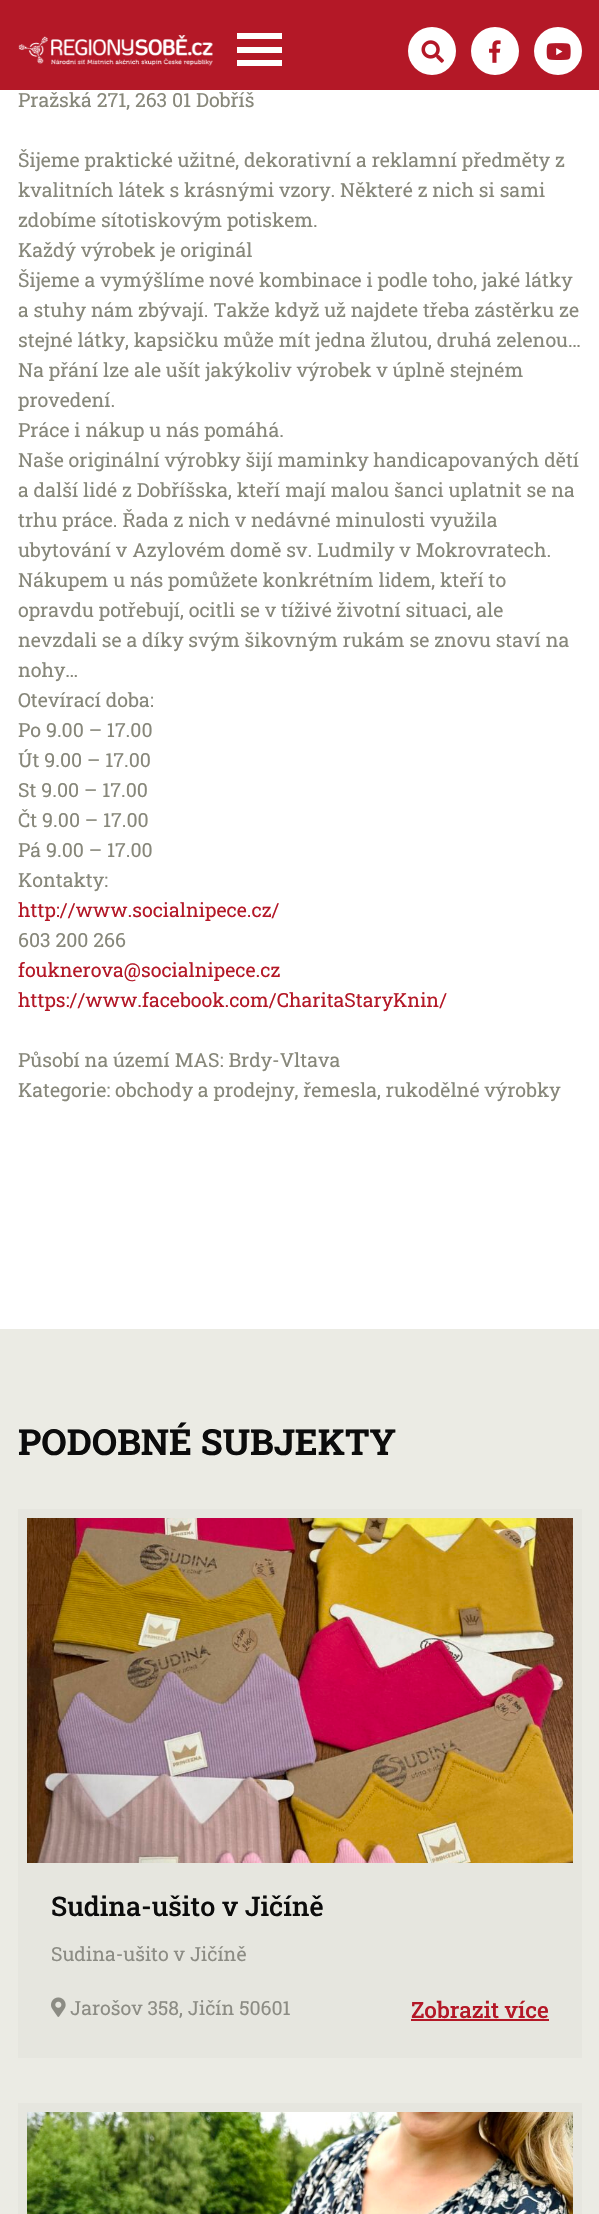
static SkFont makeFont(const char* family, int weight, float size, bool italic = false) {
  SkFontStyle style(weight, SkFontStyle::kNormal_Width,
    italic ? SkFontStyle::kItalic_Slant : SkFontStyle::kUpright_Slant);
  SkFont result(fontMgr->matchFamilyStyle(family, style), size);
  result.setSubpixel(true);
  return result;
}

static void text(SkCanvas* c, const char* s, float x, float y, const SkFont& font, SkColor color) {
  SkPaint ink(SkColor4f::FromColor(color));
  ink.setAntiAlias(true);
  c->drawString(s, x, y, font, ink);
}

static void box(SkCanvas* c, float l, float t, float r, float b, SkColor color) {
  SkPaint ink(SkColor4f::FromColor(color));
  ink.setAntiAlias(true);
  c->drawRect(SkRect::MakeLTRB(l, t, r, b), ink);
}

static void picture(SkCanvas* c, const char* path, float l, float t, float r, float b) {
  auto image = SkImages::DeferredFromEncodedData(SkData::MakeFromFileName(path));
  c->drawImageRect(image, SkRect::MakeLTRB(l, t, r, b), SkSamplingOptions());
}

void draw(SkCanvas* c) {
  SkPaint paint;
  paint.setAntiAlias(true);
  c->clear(0xffffffff);
  box(c, 0, 0, 599, 90, 0xffb41827);
  picture(c, "img_01.png", 18, 35, 213, 66);
  box(c, 237, 33, 282, 39, 0xffffffff);
  box(c, 237, 47, 282, 53, 0xffffffff);
  box(c, 237, 60, 282, 66, 0xffffffff);
  paint.setColor(0xffffffff);
  c->drawCircle(432, 51, 24, paint);
  picture(c, "img_02.png", 421, 40, 444, 63);
  c->drawCircle(495, 51, 24, paint);
  picture(c, "img_03.png", 489, 40, 501, 63);
  c->drawCircle(558, 51, 24, paint);
  picture(c, "img_04.png", 546, 43, 571, 60);
  SkFont face1 = makeFont("Roboto Slab", 400, 19.5f);
  text(c, "Pražská 271, 263 01 Dobříš", 18, 107, face1, 0xff87877a);
  text(c, "Šijeme praktické užitné, dekorativní a reklamní předměty z", 18, 167, face1, 0xff87877a);
  text(c, "kvalitních látek s krásnými vzory. Některé z nich si sami", 18, 197, face1, 0xff87877a);
  text(c, "zdobíme sítotiskovým potiskem.", 18, 227, face1, 0xff87877a);
  text(c, "Každý výrobek je originál", 18, 257, face1, 0xff87877a);
  text(c, "Šijeme a vymýšlíme nové kombinace i podle toho, jaké látky", 18, 287, face1, 0xff87877a);
  text(c, "a stuhy nám zbývají. Takže když už najdete třeba zástěrku ze", 18, 317, face1, 0xff87877a);
  text(c, "stejné látky, kapsičku může mít jedna žlutou, druhá zelenou…", 18, 347, face1, 0xff87877a);
  text(c, "Na přání lze ale ušít jakýkoliv výrobek v úplně stejném", 18, 377, face1, 0xff87877a);
  text(c, "provedení.", 18, 407, face1, 0xff87877a);
  text(c, "Práce i nákup u nás pomáhá.", 18, 437, face1, 0xff87877a);
  text(c, "Naše originální výrobky šijí maminky handicapovaných dětí", 18, 467, face1, 0xff87877a);
  text(c, "a další lidé z Dobříšska, kteří mají malou šanci uplatnit se na", 18, 497, face1, 0xff87877a);
  text(c, "trhu práce. Řada z nich v nedávné minulosti využila", 18, 527, face1, 0xff87877a);
  text(c, "ubytování v Azylovém domě sv. Ludmily v Mokrovratech.", 18, 557, face1, 0xff87877a);
  text(c, "Nákupem u nás pomůžete konkrétním lidem, kteří to", 18, 587, face1, 0xff87877a);
  text(c, "opravdu potřebují, ocitli se v tíživé životní situaci, ale", 18, 617, face1, 0xff87877a);
  text(c, "nevzdali se a díky svým šikovným rukám se znovu staví na", 18, 647, face1, 0xff87877a);
  text(c, "nohy…", 18, 677, face1, 0xff87877a);
  text(c, "Otevírací doba:", 18, 707, face1, 0xff87877a);
  text(c, "Po 9.00 – 17.00", 18, 737, face1, 0xff87877a);
  text(c, "Út 9.00 – 17.00", 18, 767, face1, 0xff87877a);
  text(c, "St 9.00 – 17.00", 18, 797, face1, 0xff87877a);
  text(c, "Čt 9.00 – 17.00", 18, 827, face1, 0xff87877a);
  text(c, "Pá 9.00 – 17.00", 18, 857, face1, 0xff87877a);
  text(c, "Kontakty:", 18, 887, face1, 0xff87877a);
  text(c, "http://www.socialnipece.cz/", 18, 917, face1, 0xffb41827);
  text(c, "603 200 266", 18, 947, face1, 0xff87877a);
  text(c, "fouknerova@socialnipece.cz", 18, 977, face1, 0xffb41827);
  text(c, "https://www.facebook.com/CharitaStaryKnin/", 18, 1007, face1, 0xffb41827);
  text(c, "Působí na území MAS: Brdy-Vltava", 18, 1067, face1, 0xff87877a);
  text(c, "Kategorie: obchody a prodejny, řemesla, rukodělné výrobky", 18, 1097, face1, 0xff87877a);
  box(c, 0, 1329, 599, 2214, 0xffebebe4);
  SkFont face2 = makeFont("Roboto Slab", 700, 36);
  text(c, "PODOBNÉ SUBJEKTY", 18, 1455, face2, 0xff0c0c0c);
  box(c, 18, 1509, 582, 2058, 0xffe6e6df);
  picture(c, "img_05.png", 27, 1518, 573, 1863);
  SkFont face3 = makeFont("Roboto Slab", 500, 27);
  text(c, "Sudina-ušito v Jičíně", 51, 1916, face3, 0xff0c0c0c);
  text(c, "Sudina-ušito v Jičíně", 51, 1961, face1, 0xff8c8c84);
  picture(c, "img_06.png", 51, 1997, 66, 2017);
  text(c, "Jarošov 358, Jičín 50601", 70, 2015, face1, 0xff8c8c84);
  SkFont face4 = makeFont("Roboto Slab", 500, 22.5f);
  text(c, "Zobrazit více", 411, 2018, face4, 0xffb41827);
  box(c, 411, 2019, 549, 2021, 0xffb41827);
  box(c, 18, 2103, 582, 2214, 0xffe6e6df);
  picture(c, "img_07.png", 27, 2112, 573, 2214);
}
